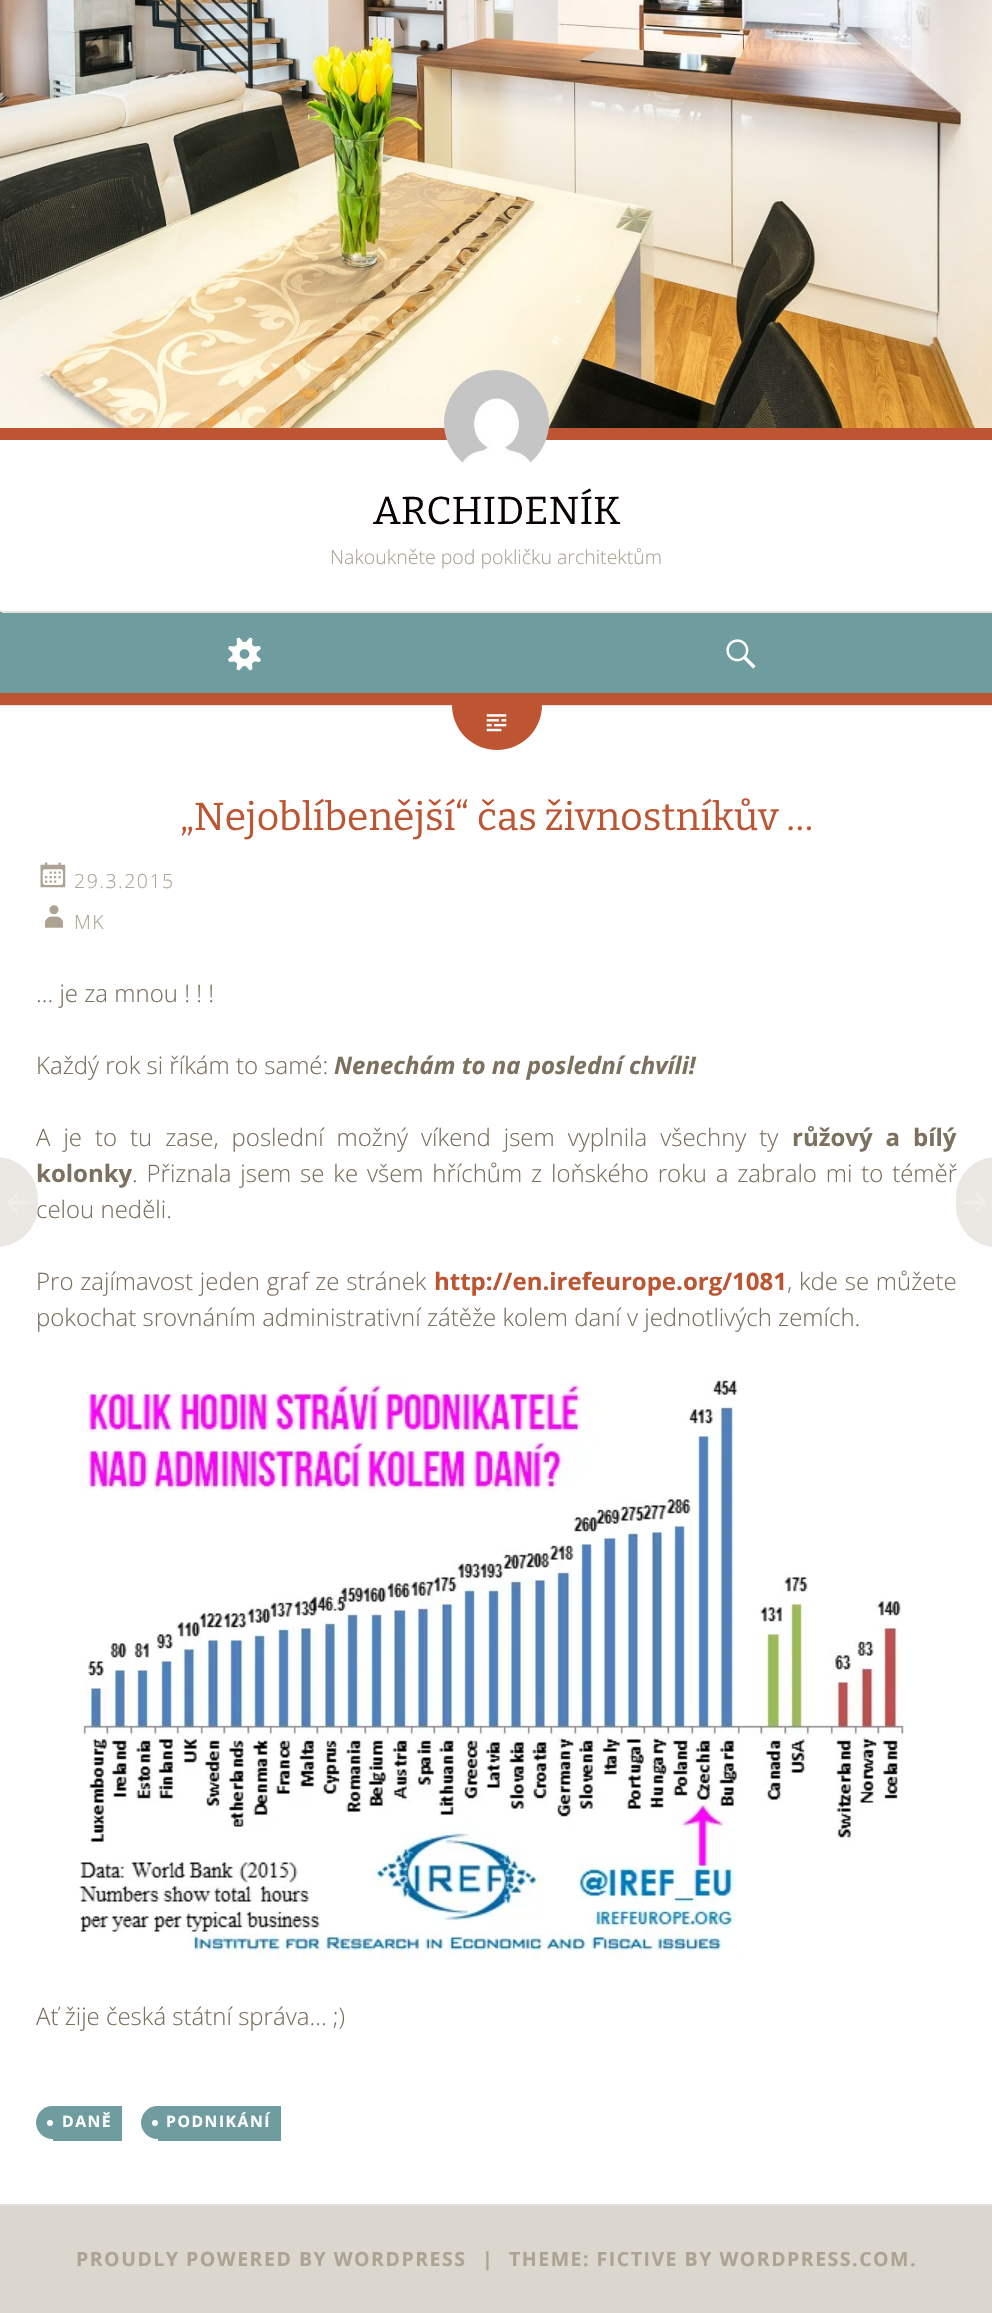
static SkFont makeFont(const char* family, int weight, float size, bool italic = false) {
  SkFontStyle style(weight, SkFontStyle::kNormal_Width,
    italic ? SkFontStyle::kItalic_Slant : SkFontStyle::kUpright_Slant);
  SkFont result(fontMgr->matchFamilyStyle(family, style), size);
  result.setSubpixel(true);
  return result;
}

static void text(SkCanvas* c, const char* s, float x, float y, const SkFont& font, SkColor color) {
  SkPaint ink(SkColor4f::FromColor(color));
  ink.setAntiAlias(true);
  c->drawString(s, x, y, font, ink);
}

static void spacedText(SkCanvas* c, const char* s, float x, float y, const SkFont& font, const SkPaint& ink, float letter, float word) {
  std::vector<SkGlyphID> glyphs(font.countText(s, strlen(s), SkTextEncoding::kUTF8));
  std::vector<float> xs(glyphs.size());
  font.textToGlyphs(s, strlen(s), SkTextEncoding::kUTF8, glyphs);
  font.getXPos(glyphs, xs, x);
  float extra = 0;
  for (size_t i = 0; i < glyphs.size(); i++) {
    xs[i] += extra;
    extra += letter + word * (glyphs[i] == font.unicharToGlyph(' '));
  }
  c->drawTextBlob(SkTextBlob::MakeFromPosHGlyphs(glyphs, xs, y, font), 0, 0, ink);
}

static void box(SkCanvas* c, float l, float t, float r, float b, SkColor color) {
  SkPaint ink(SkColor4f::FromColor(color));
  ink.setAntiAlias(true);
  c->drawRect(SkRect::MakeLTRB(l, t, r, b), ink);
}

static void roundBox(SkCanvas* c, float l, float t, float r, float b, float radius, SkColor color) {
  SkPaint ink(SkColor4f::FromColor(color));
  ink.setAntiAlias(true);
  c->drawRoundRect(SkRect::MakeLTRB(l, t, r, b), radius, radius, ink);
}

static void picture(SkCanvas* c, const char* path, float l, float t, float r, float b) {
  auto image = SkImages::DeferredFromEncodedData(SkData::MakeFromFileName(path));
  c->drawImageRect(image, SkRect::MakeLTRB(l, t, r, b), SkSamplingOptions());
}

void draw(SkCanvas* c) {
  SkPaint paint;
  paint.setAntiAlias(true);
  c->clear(0xffdbd6ce);
  picture(c, "img_01.png", 0, 0, 992, 428);
  paint.setColor(0xffffffff);
  c->drawPath(SkPathBuilder().moveTo(0, 440).lineTo(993, 440).lineTo(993, 609).cubicTo(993, 610.5f, 991.5f, 612, 990, 612).lineTo(3, 612).cubicTo(1.5f, 612, 0, 610.5f, 0, 609).close().detach(), paint);
  box(c, 0, 612, 497, 693, 0xff6f9d9f);
  box(c, 2, 611, 992, 613, 0xffe4e1dc);
  box(c, 0, 428, 992, 440, 0xffbd5532);
  picture(c, "img_02.png", 444, 370, 549, 464);
  SkFont face1 = makeFont("Bitter", 400, 39);
  text(c, "ARCHIDENÍK", 373, 524, face1, 0xff0a0202);
  SkFont face2 = makeFont("Open Sans", 300, 19.5f);
  text(c, "Nakoukněte pod pokličku architektům", 330, 564, face2, 0xffada393);
  picture(c, "img_03.png", 228, 637, 261, 671);
  box(c, 497, 613, 992, 693, 0xff6f9d9f);
  picture(c, "img_04.png", 726, 639, 756, 669);
  box(c, 0, 706, 992, 2204, 0xffffffff);
  box(c, 0, 705, 992, 706, 0xffe4e1dc);
  box(c, 0, 2204, 992, 2206, 0xffe4e1dc);
  box(c, 0, 693, 992, 705, 0xffbd5532);
  paint.setColor(0xffbd5532);
  c->drawPath(SkPathBuilder().moveTo(452, 705).lineTo(542, 705).cubicTo(542, 730, 522, 750, 497, 750).cubicTo(472, 750, 452, 730, 452, 705).close().detach(), paint);
  picture(c, "img_05.png", 486, 714, 507, 732);
  text(c, "„Nejoblíbenější“ čas živnostníkův …", 180, 830, face1, 0xffbd5532);
  picture(c, "img_06.png", 40, 862, 66, 888);
  paint.setColor(0xffada393);
  spacedText(c, "29.3.2015", 74, 888, face2, paint, 1.5f, 0);
  picture(c, "img_07.png", 45, 905, 63, 928);
  spacedText(c, "MK", 74, 929, face2, paint, 1.5f, 0);
  SkFont face3 = makeFont("Open Sans", 300, 24);
  text(c, "… je za mnou ! ! !", 36, 1002, face3, 0xff7c705e);
  text(c, "Každý rok si říkám to samé:", 36, 1074, face3, 0xff7c705e);
  SkFont face4 = makeFont("Open Sans", 700, 24, true);
  text(c, "Nenechám to na poslední chvíli!", 334, 1074, face4, 0xff7c705e);
  paint.setColor(0xff7c705e);
  spacedText(c, "A je to tu zase, poslední možný víkend jsem vyplnila všechny ty", 36, 1146, face3, paint, 0, 6.75f);
  SkFont face5 = makeFont("Open Sans", 700, 24);
  spacedText(c, "růžový a bílý", 792, 1146, face5, paint, 0, 6.75f);
  text(c, "kolonky", 36, 1182, face5, 0xff7c705e);
  spacedText(c, ". Přiznala jsem se ke všem hříchům z loňského roku a zabralo mi to téměř", 132, 1182, face3, paint, 0, 2.6f);
  text(c, "celou neděli.", 36, 1218, face3, 0xff7c705e);
  spacedText(c, "Pro zajímavost jeden graf ze stránek", 36, 1290, face3, paint, 0, 0.5f);
  text(c, "http://en.irefeurope.org/1081", 434, 1290, face5, 0xffbd5532);
  spacedText(c, ", kde se můžete", 787, 1290, face3, paint, 0, 0.5f);
  text(c, "pokochat srovnáním administrativní zátěže kolem daní v jednotlivých zemích.", 36, 1326, face3, 0xff7c705e);
  picture(c, "img_08.png", 79, 1377, 904, 1960);
  text(c, "Ať žije česká státní správa… ;)", 36, 2025, face3, 0xff7c705e);
  box(c, 53, 2106, 122, 2141, 0xff6f9d9f);
  paint.setColor(0xff6f9d9f);
  c->drawPath(SkPathBuilder().moveTo(52.5f, 2106).lineTo(53, 2106).lineTo(53, 2139).lineTo(52.5f, 2139).cubicTo(43.5f, 2139, 36, 2131.5f, 36, 2122.5f).cubicTo(36, 2113.5f, 43.5f, 2106, 52.5f, 2106).close().detach(), paint);
  SkFont face6 = makeFont("Open Sans", 700, 15.75f);
  paint.setColor(0xffffffff);
  spacedText(c, "DANĚ", 62, 2127, face6, paint, 1.5f, 0);
  c->drawCircle(50, 2123, 3, paint);
  box(c, 158, 2106, 281, 2141, 0xff6f9d9f);
  paint.setColor(0xff6f9d9f);
  c->drawPath(SkPathBuilder().moveTo(157.5f, 2106).lineTo(158, 2106).lineTo(158, 2139).lineTo(157.5f, 2139).cubicTo(148.5f, 2139, 141, 2131.5f, 141, 2122.5f).cubicTo(141, 2113.5f, 148.5f, 2106, 157.5f, 2106).close().detach(), paint);
  paint.setColor(0xffffffff);
  spacedText(c, "PODNIKÁNÍ", 166, 2127, face6, paint, 1.5f, 0);
  c->drawCircle(155, 2123, 3, paint);
  roundBox(c, -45, 1157, 38, 1247, 45, 0xffebe8e4);
  picture(c, "img_09.png", 7, 1193, 30, 1213);
  roundBox(c, 956, 1157, 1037, 1247, 45, 0xffebe8e4);
  picture(c, "img_10.png", 963, 1193, 986, 1213);
  SkFont face7 = makeFont("Open Sans", 700, 19.5f);
  paint.setColor(0xffada393);
  spacedText(c, "PROUDLY POWERED BY WORDPRESS", 76, 2266, face7, paint, 1.5f, 0);
  spacedText(c, "|", 482, 2266, face7, paint, 1.5f, 0);
  spacedText(c, "THEME: FICTIVE BY WORDPRESS.COM.", 509, 2266, face7, paint, 1.5f, 0);
}
